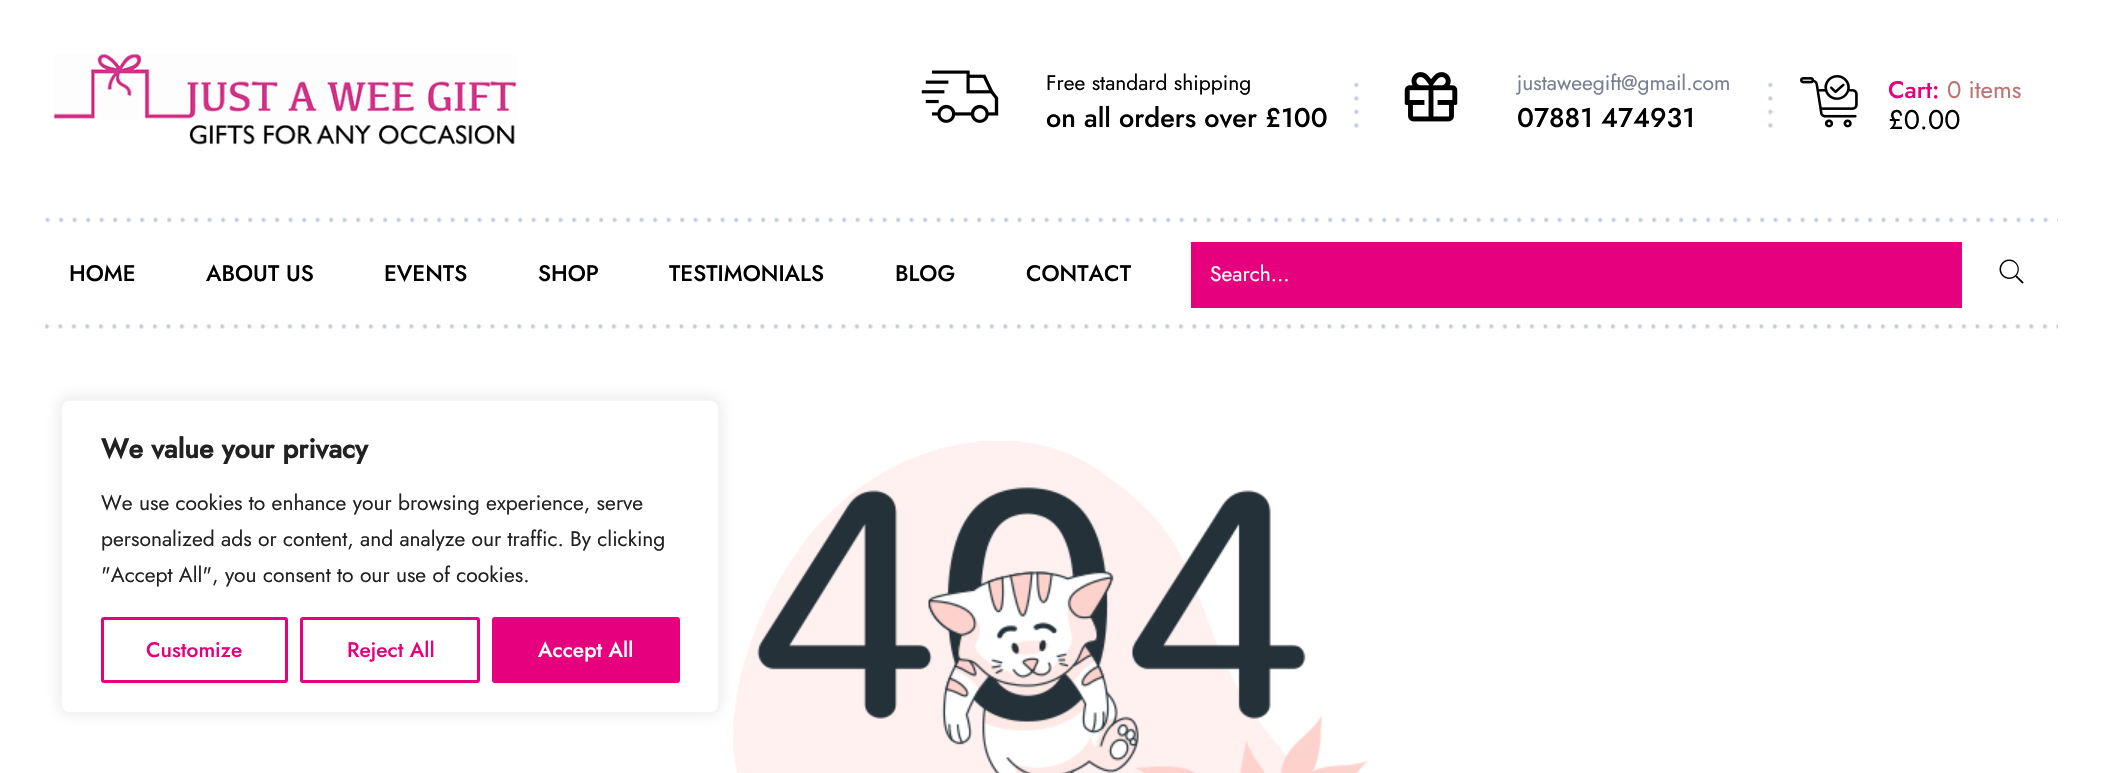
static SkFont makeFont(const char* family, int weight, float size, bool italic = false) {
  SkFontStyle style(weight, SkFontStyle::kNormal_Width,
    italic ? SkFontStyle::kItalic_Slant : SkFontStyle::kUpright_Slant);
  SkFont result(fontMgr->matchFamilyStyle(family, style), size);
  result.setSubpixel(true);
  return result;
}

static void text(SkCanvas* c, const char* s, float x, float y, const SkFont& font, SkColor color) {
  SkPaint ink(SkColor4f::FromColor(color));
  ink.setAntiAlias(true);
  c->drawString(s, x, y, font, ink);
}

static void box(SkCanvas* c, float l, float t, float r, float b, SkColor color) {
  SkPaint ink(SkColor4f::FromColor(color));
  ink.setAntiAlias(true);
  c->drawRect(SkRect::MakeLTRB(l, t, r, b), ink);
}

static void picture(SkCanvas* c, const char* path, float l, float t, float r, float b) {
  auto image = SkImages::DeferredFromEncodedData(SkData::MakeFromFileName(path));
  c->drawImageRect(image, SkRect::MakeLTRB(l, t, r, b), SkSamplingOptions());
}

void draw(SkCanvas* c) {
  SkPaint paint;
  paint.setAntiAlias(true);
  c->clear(0xffffffff);
  picture(c, "img_01.png", 53, 53, 517, 145);
  picture(c, "img_02.png", 921, 70, 999, 123);
  SkFont face1 = makeFont("Jost", 400, 21);
  text(c, "Free standard shipping", 1046, 90, face1, 0xff000000);
  SkFont face2 = makeFont("Jost", 500, 27);
  text(c, "on all orders over £100", 1046, 127, face2, 0xff000000);
  picture(c, "img_03.png", 1354, 82, 1360, 128);
  picture(c, "img_04.png", 1404, 72, 1458, 122);
  text(c, "justaweegift@gmail.com", 1517, 90, face1, 0xff788090);
  text(c, "07881 474931", 1517, 127, face2, 0xff000000);
  picture(c, "img_05.png", 1768, 82, 1774, 128);
  picture(c, "img_06.png", 1800, 75, 1858, 128);
  SkFont face3 = makeFont("Jost", 500, 24);
  text(c, "Cart:", 1888, 98, face3, 0xffe6007e);
  SkFont face4 = makeFont("Jost", 400, 24);
  text(c, "0 items", 1947, 98, face4, 0xffbe7374);
  SkFont face5 = makeFont("Jost", 400, 27);
  text(c, "£0.00", 1888, 129, face5, 0xff000000);
  picture(c, "img_07.png", 45, 324, 2058, 329);
  picture(c, "img_08.png", 45, 217, 2058, 223);
  SkFont face6 = makeFont("Jost", 500, 22.5f);
  text(c, "HOME", 69, 281, face6, 0xff000000);
  text(c, "ABOUT US", 206, 281, face6, 0xff000000);
  text(c, "EVENTS", 384, 281, face6, 0xff000000);
  text(c, "SHOP", 538, 281, face6, 0xff000000);
  text(c, "TESTIMONIALS", 669, 281, face6, 0xff000000);
  text(c, "BLOG", 895, 281, face6, 0xff000000);
  text(c, "CONTACT", 1026, 281, face6, 0xff000000);
  box(c, 1191, 242, 1962, 308, 0xffe6007e);
  text(c, "Search...", 1210, 281, face1, 0xffffffff);
  picture(c, "img_09.png", 1999, 259, 2024, 284);
  picture(c, "img_10.png", 733, 441, 1368, 773);
  paint.setColor(0x4dacabab);
  paint.setMaskFilter(SkMaskFilter::MakeBlur(kNormal_SkBlurStyle, 7.5f));
  c->drawRoundRect(SkRect::MakeLTRB(60, 398, 720, 713), 9, 9, paint);
  paint.setMaskFilter(nullptr);
  paint.setColor(0xffffffff);
  c->drawRoundRect(SkRect::MakeLTRB(61, 400, 719, 713), 8, 8, paint);
  paint.setStyle(SkPaint::kStroke_Style);
  paint.setStrokeWidth(2);
  paint.setColor(0xfff4f4f4);
  c->drawRoundRect(SkRect::MakeLTRB(61, 400, 719, 713), 8, 8, paint);
  SkFont face7 = makeFont("Jost", 700, 27);
  text(c, "We value your privacy", 101, 458, face7, 0xff212121);
  text(c, "We use cookies to enhance your browsing experience, serve", 101, 510, face1, 0xff212121);
  text(c, "personalized ads or content, and analyze our traffic. By clicking", 101, 546, face1, 0xff212121);
  text(c, "\"Accept All\", you consent to our use of cookies.", 101, 582, face1, 0xff212121);
  paint.setStrokeWidth(3);
  paint.setColor(0xffe6007e);
  c->drawRoundRect(SkRect::MakeLTRB(102.5f, 618.5f, 286.5f, 681.5f), 1.5f, 1.5f, paint);
  SkFont face8 = makeFont("Jost", 500, 21);
  text(c, "Customize", 146, 657, face8, 0xffe6007e);
  c->drawRoundRect(SkRect::MakeLTRB(301.5f, 618.5f, 478.5f, 681.5f), 1.5f, 1.5f, paint);
  text(c, "Reject All", 347, 657, face8, 0xffe6007e);
  paint.setStyle(SkPaint::kFill_Style);
  c->drawRoundRect(SkRect::MakeLTRB(493.5f, 618.5f, 678.5f, 681.5f), 1.5f, 1.5f, paint);
  paint.setStyle(SkPaint::kStroke_Style);
  c->drawRoundRect(SkRect::MakeLTRB(493.5f, 618.5f, 678.5f, 681.5f), 1.5f, 1.5f, paint);
  text(c, "Accept All", 538, 657, face8, 0xffffffff);
}
